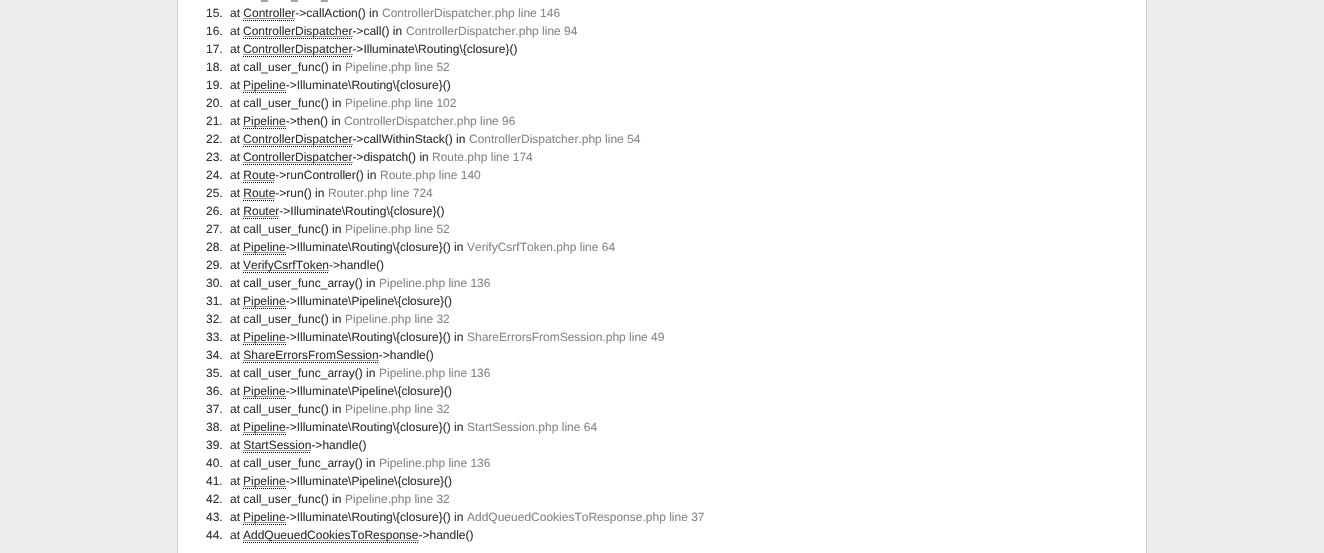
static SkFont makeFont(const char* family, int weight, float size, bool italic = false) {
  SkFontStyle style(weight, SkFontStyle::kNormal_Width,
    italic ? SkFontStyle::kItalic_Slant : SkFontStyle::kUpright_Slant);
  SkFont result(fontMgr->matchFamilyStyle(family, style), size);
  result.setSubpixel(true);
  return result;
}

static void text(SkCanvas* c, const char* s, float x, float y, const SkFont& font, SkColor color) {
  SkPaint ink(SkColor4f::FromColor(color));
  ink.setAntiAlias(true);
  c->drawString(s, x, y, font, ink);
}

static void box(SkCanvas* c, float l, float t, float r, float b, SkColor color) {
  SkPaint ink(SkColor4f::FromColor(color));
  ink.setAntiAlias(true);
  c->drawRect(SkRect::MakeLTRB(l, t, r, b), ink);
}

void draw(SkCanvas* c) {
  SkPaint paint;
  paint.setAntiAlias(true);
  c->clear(0xffeeeeee);
  box(c, 178, 0, 1146, 553, 0xffffffff);
  paint.setColor(0xffcccccc);
  c->drawPath(SkPathBuilder(SkPathFillType::kEvenOdd).moveTo(177, -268).lineTo(1147, -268).lineTo(1147, 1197).cubicTo(1147, 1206, 1140, 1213, 1131, 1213).lineTo(193, 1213).cubicTo(184, 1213, 177, 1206, 177, 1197).close().moveTo(178, -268).lineTo(1146, -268).lineTo(1146, 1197).cubicTo(1146, 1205, 1139, 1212, 1131, 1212).lineTo(193, 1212).cubicTo(185, 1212, 178, 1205, 178, 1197).close().detach(), paint);
  SkFont face1 = makeFont("Liberation Sans", 400, 12);
  text(c, "_", 261, -1, face1, 0xff333333);
  text(c, "_", 291, -1, face1, 0xff333333);
  text(c, "_", 321, -1, face1, 0xff333333);
  text(c, "15.", 206, 17, face1, 0xff333333);
  text(c, "at Controller->callAction() in", 230, 17, face1, 0xff333333);
  text(c, "ControllerDispatcher.php line 146", 382, 17, face1, 0xff868686);
  paint.setStyle(SkPaint::kStroke_Style);
  paint.setStrokeWidth(1);
  paint.setColor(0xff333333);
  paint.setPathEffect(SkDashPathEffect::Make({{1, 1}}, 0));
  c->drawPath(SkPathBuilder().moveTo(243.5f, 18.5f).lineTo(295.5f, 18.5f).detach(), paint);
  paint.setPathEffect(nullptr);
  paint.setColor(0xff000000);
  paint.setPathEffect(SkDashPathEffect::Make({{1, 1}}, 0));
  c->drawPath(SkPathBuilder().moveTo(243, 20.5f).lineTo(295, 20.5f).detach(), paint);
  paint.setPathEffect(nullptr);
  text(c, "16.", 206, 35, face1, 0xff333333);
  text(c, "at", 230, 35, face1, 0xff333333);
  paint.setColor(0xff333333);
  paint.setPathEffect(SkDashPathEffect::Make({{1, 1}}, 0));
  c->drawPath(SkPathBuilder().moveTo(243.5f, 36.5f).lineTo(352.5f, 36.5f).detach(), paint);
  paint.setPathEffect(nullptr);
  text(c, "ControllerDispatcher->call() in", 243, 35, face1, 0xff333333);
  paint.setColor(0xff000000);
  paint.setPathEffect(SkDashPathEffect::Make({{1, 1}}, 0));
  c->drawPath(SkPathBuilder().moveTo(243, 38.5f).lineTo(353, 38.5f).detach(), paint);
  paint.setPathEffect(nullptr);
  text(c, "ControllerDispatcher.php line 94", 406, 35, face1, 0xff868686);
  text(c, "17.", 206, 53, face1, 0xff333333);
  text(c, "at", 230, 53, face1, 0xff333333);
  paint.setColor(0xff333333);
  paint.setPathEffect(SkDashPathEffect::Make({{1, 1}}, 0));
  c->drawPath(SkPathBuilder().moveTo(243.5f, 54.5f).lineTo(352.5f, 54.5f).detach(), paint);
  paint.setPathEffect(nullptr);
  text(c, "ControllerDispatcher->Illuminate\\Routing\\{closure}()", 243, 53, face1, 0xff333333);
  paint.setColor(0xff000000);
  paint.setPathEffect(SkDashPathEffect::Make({{1, 1}}, 0));
  c->drawPath(SkPathBuilder().moveTo(243, 56.5f).lineTo(353, 56.5f).detach(), paint);
  paint.setPathEffect(nullptr);
  text(c, "18.", 206, 71, face1, 0xff333333);
  text(c, "at call_user_func() in", 230, 71, face1, 0xff333333);
  text(c, "Pipeline.php line 52", 345, 71, face1, 0xff868686);
  text(c, "19.", 206, 89, face1, 0xff333333);
  text(c, "at", 230, 89, face1, 0xff333333);
  paint.setColor(0xff333333);
  paint.setPathEffect(SkDashPathEffect::Make({{1, 1}}, 0));
  c->drawPath(SkPathBuilder().moveTo(243.5f, 90.5f).lineTo(286, 90.5f).detach(), paint);
  paint.setPathEffect(nullptr);
  text(c, "Pipeline->Illuminate\\Routing\\{closure}()", 243, 89, face1, 0xff333333);
  paint.setColor(0xff000000);
  paint.setPathEffect(SkDashPathEffect::Make({{1, 1}}, 0));
  c->drawPath(SkPathBuilder().moveTo(243, 92.5f).lineTo(286, 92.5f).detach(), paint);
  paint.setPathEffect(nullptr);
  text(c, "20.", 206, 107, face1, 0xff333333);
  text(c, "at call_user_func() in", 230, 107, face1, 0xff333333);
  text(c, "Pipeline.php line 102", 345, 107, face1, 0xff868686);
  text(c, "21.", 206, 125, face1, 0xff333333);
  text(c, "at", 230, 125, face1, 0xff333333);
  paint.setColor(0xff333333);
  paint.setPathEffect(SkDashPathEffect::Make({{1, 1}}, 0));
  c->drawPath(SkPathBuilder().moveTo(243.5f, 126.5f).lineTo(286, 126.5f).detach(), paint);
  paint.setPathEffect(nullptr);
  text(c, "Pipeline->then() in", 243, 125, face1, 0xff333333);
  paint.setColor(0xff000000);
  paint.setPathEffect(SkDashPathEffect::Make({{1, 1}}, 0));
  c->drawPath(SkPathBuilder().moveTo(243, 128.5f).lineTo(286, 128.5f).detach(), paint);
  paint.setPathEffect(nullptr);
  text(c, "ControllerDispatcher.php line 96", 344, 125, face1, 0xff868686);
  text(c, "22.", 206, 143, face1, 0xff333333);
  text(c, "at", 230, 143, face1, 0xff333333);
  paint.setColor(0xff333333);
  paint.setPathEffect(SkDashPathEffect::Make({{1, 1}}, 0));
  c->drawPath(SkPathBuilder().moveTo(243.5f, 144.5f).lineTo(352.5f, 144.5f).detach(), paint);
  paint.setPathEffect(nullptr);
  text(c, "ControllerDispatcher->callWithinStack() in", 243, 143, face1, 0xff333333);
  paint.setColor(0xff000000);
  paint.setPathEffect(SkDashPathEffect::Make({{1, 1}}, 0));
  c->drawPath(SkPathBuilder().moveTo(243, 146.5f).lineTo(353, 146.5f).detach(), paint);
  paint.setPathEffect(nullptr);
  text(c, "ControllerDispatcher.php line 54", 469, 143, face1, 0xff868686);
  text(c, "23.", 206, 161, face1, 0xff333333);
  text(c, "at", 230, 161, face1, 0xff333333);
  paint.setColor(0xff333333);
  paint.setPathEffect(SkDashPathEffect::Make({{1, 1}}, 0));
  c->drawPath(SkPathBuilder().moveTo(243.5f, 162.5f).lineTo(352.5f, 162.5f).detach(), paint);
  paint.setPathEffect(nullptr);
  text(c, "ControllerDispatcher->dispatch() in", 243, 161, face1, 0xff333333);
  paint.setColor(0xff000000);
  paint.setPathEffect(SkDashPathEffect::Make({{1, 1}}, 0));
  c->drawPath(SkPathBuilder().moveTo(243, 164.5f).lineTo(353, 164.5f).detach(), paint);
  paint.setPathEffect(nullptr);
  text(c, "Route.php line 174", 432, 161, face1, 0xff868686);
  text(c, "24.", 206, 179, face1, 0xff333333);
  text(c, "at Route->runController() in", 230, 179, face1, 0xff333333);
  text(c, "Route.php line 140", 380, 179, face1, 0xff868686);
  paint.setColor(0xff333333);
  paint.setPathEffect(SkDashPathEffect::Make({{1, 1}}, 0));
  c->drawPath(SkPathBuilder().moveTo(243.5f, 180.5f).lineTo(275.5f, 180.5f).detach(), paint);
  paint.setPathEffect(nullptr);
  paint.setColor(0xff000000);
  paint.setPathEffect(SkDashPathEffect::Make({{1, 1}}, 0));
  c->drawPath(SkPathBuilder().moveTo(243, 182.5f).lineTo(275, 182.5f).detach(), paint);
  paint.setPathEffect(nullptr);
  text(c, "25.", 206, 197, face1, 0xff333333);
  text(c, "at Route->run() in", 230, 197, face1, 0xff333333);
  text(c, "Router.php line 724", 328, 197, face1, 0xff868686);
  paint.setColor(0xff333333);
  paint.setPathEffect(SkDashPathEffect::Make({{1, 1}}, 0));
  c->drawPath(SkPathBuilder().moveTo(243.5f, 198.5f).lineTo(275.5f, 198.5f).detach(), paint);
  paint.setPathEffect(nullptr);
  paint.setColor(0xff000000);
  paint.setPathEffect(SkDashPathEffect::Make({{1, 1}}, 0));
  c->drawPath(SkPathBuilder().moveTo(243, 200.5f).lineTo(275, 200.5f).detach(), paint);
  paint.setPathEffect(nullptr);
  text(c, "26.", 206, 215, face1, 0xff333333);
  text(c, "at Router->Illuminate\\Routing\\{closure}()", 230, 215, face1, 0xff333333);
  paint.setColor(0xff333333);
  paint.setPathEffect(SkDashPathEffect::Make({{1, 1}}, 0));
  c->drawPath(SkPathBuilder().moveTo(243.5f, 216.5f).lineTo(279.5f, 216.5f).detach(), paint);
  paint.setPathEffect(nullptr);
  paint.setColor(0xff000000);
  paint.setPathEffect(SkDashPathEffect::Make({{1, 1}}, 0));
  c->drawPath(SkPathBuilder().moveTo(243, 218.5f).lineTo(279, 218.5f).detach(), paint);
  paint.setPathEffect(nullptr);
  text(c, "27.", 206, 233, face1, 0xff333333);
  text(c, "at call_user_func() in", 230, 233, face1, 0xff333333);
  text(c, "Pipeline.php line 52", 345, 233, face1, 0xff868686);
  text(c, "28.", 206, 251, face1, 0xff333333);
  text(c, "at", 230, 251, face1, 0xff333333);
  paint.setColor(0xff333333);
  paint.setPathEffect(SkDashPathEffect::Make({{1, 1}}, 0));
  c->drawPath(SkPathBuilder().moveTo(243.5f, 252.5f).lineTo(286, 252.5f).detach(), paint);
  paint.setPathEffect(nullptr);
  text(c, "Pipeline->Illuminate\\Routing\\{closure}() in", 243, 251, face1, 0xff333333);
  paint.setColor(0xff000000);
  paint.setPathEffect(SkDashPathEffect::Make({{1, 1}}, 0));
  c->drawPath(SkPathBuilder().moveTo(243, 254.5f).lineTo(286, 254.5f).detach(), paint);
  paint.setPathEffect(nullptr);
  text(c, "VerifyCsrfToken.php line 64", 467, 251, face1, 0xff868686);
  text(c, "29.", 206, 269, face1, 0xff333333);
  text(c, "at", 230, 269, face1, 0xff333333);
  paint.setColor(0xff333333);
  paint.setPathEffect(SkDashPathEffect::Make({{1, 1}}, 0));
  c->drawPath(SkPathBuilder().moveTo(243.5f, 270.5f).lineTo(329.5f, 270.5f).detach(), paint);
  paint.setPathEffect(nullptr);
  text(c, "VerifyCsrfToken->handle()", 243, 269, face1, 0xff333333);
  paint.setColor(0xff000000);
  paint.setPathEffect(SkDashPathEffect::Make({{1, 1}}, 0));
  c->drawPath(SkPathBuilder().moveTo(243, 272.5f).lineTo(329, 272.5f).detach(), paint);
  paint.setPathEffect(nullptr);
  text(c, "30.", 206, 287, face1, 0xff333333);
  text(c, "at call_user_func_array() in", 230, 287, face1, 0xff333333);
  text(c, "Pipeline.php line 136", 379, 287, face1, 0xff868686);
  text(c, "31.", 206, 305, face1, 0xff333333);
  text(c, "at", 230, 305, face1, 0xff333333);
  paint.setColor(0xff333333);
  paint.setPathEffect(SkDashPathEffect::Make({{1, 1}}, 0));
  c->drawPath(SkPathBuilder().moveTo(243.5f, 306.5f).lineTo(286, 306.5f).detach(), paint);
  paint.setPathEffect(nullptr);
  text(c, "Pipeline->Illuminate\\Pipeline\\{closure}()", 243, 305, face1, 0xff333333);
  paint.setColor(0xff000000);
  paint.setPathEffect(SkDashPathEffect::Make({{1, 1}}, 0));
  c->drawPath(SkPathBuilder().moveTo(243, 308.5f).lineTo(286, 308.5f).detach(), paint);
  paint.setPathEffect(nullptr);
  text(c, "32.", 206, 323, face1, 0xff333333);
  text(c, "at call_user_func() in", 230, 323, face1, 0xff333333);
  text(c, "Pipeline.php line 32", 345, 323, face1, 0xff868686);
  text(c, "33.", 206, 341, face1, 0xff333333);
  text(c, "at", 230, 341, face1, 0xff333333);
  paint.setColor(0xff333333);
  paint.setPathEffect(SkDashPathEffect::Make({{1, 1}}, 0));
  c->drawPath(SkPathBuilder().moveTo(243.5f, 342.5f).lineTo(286, 342.5f).detach(), paint);
  paint.setPathEffect(nullptr);
  text(c, "Pipeline->Illuminate\\Routing\\{closure}() in", 243, 341, face1, 0xff333333);
  paint.setColor(0xff000000);
  paint.setPathEffect(SkDashPathEffect::Make({{1, 1}}, 0));
  c->drawPath(SkPathBuilder().moveTo(243, 344.5f).lineTo(286, 344.5f).detach(), paint);
  paint.setPathEffect(nullptr);
  text(c, "ShareErrorsFromSession.php line 49", 467, 341, face1, 0xff868686);
  text(c, "34.", 206, 359, face1, 0xff333333);
  text(c, "at ShareErrorsFromSession->handle()", 230, 359, face1, 0xff333333);
  paint.setColor(0xff333333);
  paint.setPathEffect(SkDashPathEffect::Make({{1, 1}}, 0));
  c->drawPath(SkPathBuilder().moveTo(243.5f, 360.5f).lineTo(378.5f, 360.5f).detach(), paint);
  paint.setPathEffect(nullptr);
  paint.setColor(0xff000000);
  paint.setPathEffect(SkDashPathEffect::Make({{1, 1}}, 0));
  c->drawPath(SkPathBuilder().moveTo(243, 362.5f).lineTo(379, 362.5f).detach(), paint);
  paint.setPathEffect(nullptr);
  text(c, "35.", 206, 377, face1, 0xff333333);
  text(c, "at call_user_func_array() in", 230, 377, face1, 0xff333333);
  text(c, "Pipeline.php line 136", 379, 377, face1, 0xff868686);
  text(c, "36.", 206, 395, face1, 0xff333333);
  text(c, "at", 230, 395, face1, 0xff333333);
  paint.setColor(0xff333333);
  paint.setPathEffect(SkDashPathEffect::Make({{1, 1}}, 0));
  c->drawPath(SkPathBuilder().moveTo(243.5f, 396.5f).lineTo(286, 396.5f).detach(), paint);
  paint.setPathEffect(nullptr);
  text(c, "Pipeline->Illuminate\\Pipeline\\{closure}()", 243, 395, face1, 0xff333333);
  paint.setColor(0xff000000);
  paint.setPathEffect(SkDashPathEffect::Make({{1, 1}}, 0));
  c->drawPath(SkPathBuilder().moveTo(243, 398.5f).lineTo(286, 398.5f).detach(), paint);
  paint.setPathEffect(nullptr);
  text(c, "37.", 206, 413, face1, 0xff333333);
  text(c, "at call_user_func() in", 230, 413, face1, 0xff333333);
  text(c, "Pipeline.php line 32", 345, 413, face1, 0xff868686);
  text(c, "38.", 206, 431, face1, 0xff333333);
  text(c, "at", 230, 431, face1, 0xff333333);
  paint.setColor(0xff333333);
  paint.setPathEffect(SkDashPathEffect::Make({{1, 1}}, 0));
  c->drawPath(SkPathBuilder().moveTo(243.5f, 432.5f).lineTo(286, 432.5f).detach(), paint);
  paint.setPathEffect(nullptr);
  text(c, "Pipeline->Illuminate\\Routing\\{closure}() in", 243, 431, face1, 0xff333333);
  paint.setColor(0xff000000);
  paint.setPathEffect(SkDashPathEffect::Make({{1, 1}}, 0));
  c->drawPath(SkPathBuilder().moveTo(243, 434.5f).lineTo(286, 434.5f).detach(), paint);
  paint.setPathEffect(nullptr);
  text(c, "StartSession.php line 64", 467, 431, face1, 0xff868686);
  text(c, "39.", 206, 449, face1, 0xff333333);
  text(c, "at StartSession->handle()", 230, 449, face1, 0xff333333);
  paint.setColor(0xff333333);
  paint.setPathEffect(SkDashPathEffect::Make({{1, 1}}, 0));
  c->drawPath(SkPathBuilder().moveTo(243.5f, 450.5f).lineTo(311.5f, 450.5f).detach(), paint);
  paint.setPathEffect(nullptr);
  paint.setColor(0xff000000);
  paint.setPathEffect(SkDashPathEffect::Make({{1, 1}}, 0));
  c->drawPath(SkPathBuilder().moveTo(243, 452.5f).lineTo(311, 452.5f).detach(), paint);
  paint.setPathEffect(nullptr);
  text(c, "40.", 206, 467, face1, 0xff333333);
  text(c, "at call_user_func_array() in", 230, 467, face1, 0xff333333);
  text(c, "Pipeline.php line 136", 379, 467, face1, 0xff868686);
  text(c, "41.", 206, 485, face1, 0xff333333);
  text(c, "at", 230, 485, face1, 0xff333333);
  paint.setColor(0xff333333);
  paint.setPathEffect(SkDashPathEffect::Make({{1, 1}}, 0));
  c->drawPath(SkPathBuilder().moveTo(243.5f, 486.5f).lineTo(286, 486.5f).detach(), paint);
  paint.setPathEffect(nullptr);
  text(c, "Pipeline->Illuminate\\Pipeline\\{closure}()", 243, 485, face1, 0xff333333);
  paint.setColor(0xff000000);
  paint.setPathEffect(SkDashPathEffect::Make({{1, 1}}, 0));
  c->drawPath(SkPathBuilder().moveTo(243, 488.5f).lineTo(286, 488.5f).detach(), paint);
  paint.setPathEffect(nullptr);
  text(c, "42.", 206, 503, face1, 0xff333333);
  text(c, "at call_user_func() in", 230, 503, face1, 0xff333333);
  text(c, "Pipeline.php line 32", 345, 503, face1, 0xff868686);
  text(c, "43.", 206, 521, face1, 0xff333333);
  text(c, "at", 230, 521, face1, 0xff333333);
  paint.setColor(0xff333333);
  paint.setPathEffect(SkDashPathEffect::Make({{1, 1}}, 0));
  c->drawPath(SkPathBuilder().moveTo(243.5f, 522.5f).lineTo(286, 522.5f).detach(), paint);
  paint.setPathEffect(nullptr);
  text(c, "Pipeline->Illuminate\\Routing\\{closure}() in", 243, 521, face1, 0xff333333);
  paint.setColor(0xff000000);
  paint.setPathEffect(SkDashPathEffect::Make({{1, 1}}, 0));
  c->drawPath(SkPathBuilder().moveTo(243, 524.5f).lineTo(286, 524.5f).detach(), paint);
  paint.setPathEffect(nullptr);
  text(c, "AddQueuedCookiesToResponse.php line 37", 467, 521, face1, 0xff868686);
  text(c, "44.", 206, 539, face1, 0xff333333);
  text(c, "at", 230, 539, face1, 0xff333333);
  paint.setColor(0xff333333);
  paint.setPathEffect(SkDashPathEffect::Make({{1, 1}}, 0));
  c->drawPath(SkPathBuilder().moveTo(243.5f, 540.5f).lineTo(419, 540.5f).detach(), paint);
  paint.setPathEffect(nullptr);
  text(c, "AddQueuedCookiesToResponse->handle()", 243, 539, face1, 0xff333333);
  paint.setColor(0xff000000);
  paint.setPathEffect(SkDashPathEffect::Make({{1, 1}}, 0));
  c->drawPath(SkPathBuilder().moveTo(243, 542.5f).lineTo(419, 542.5f).detach(), paint);
  paint.setPathEffect(nullptr);
}
